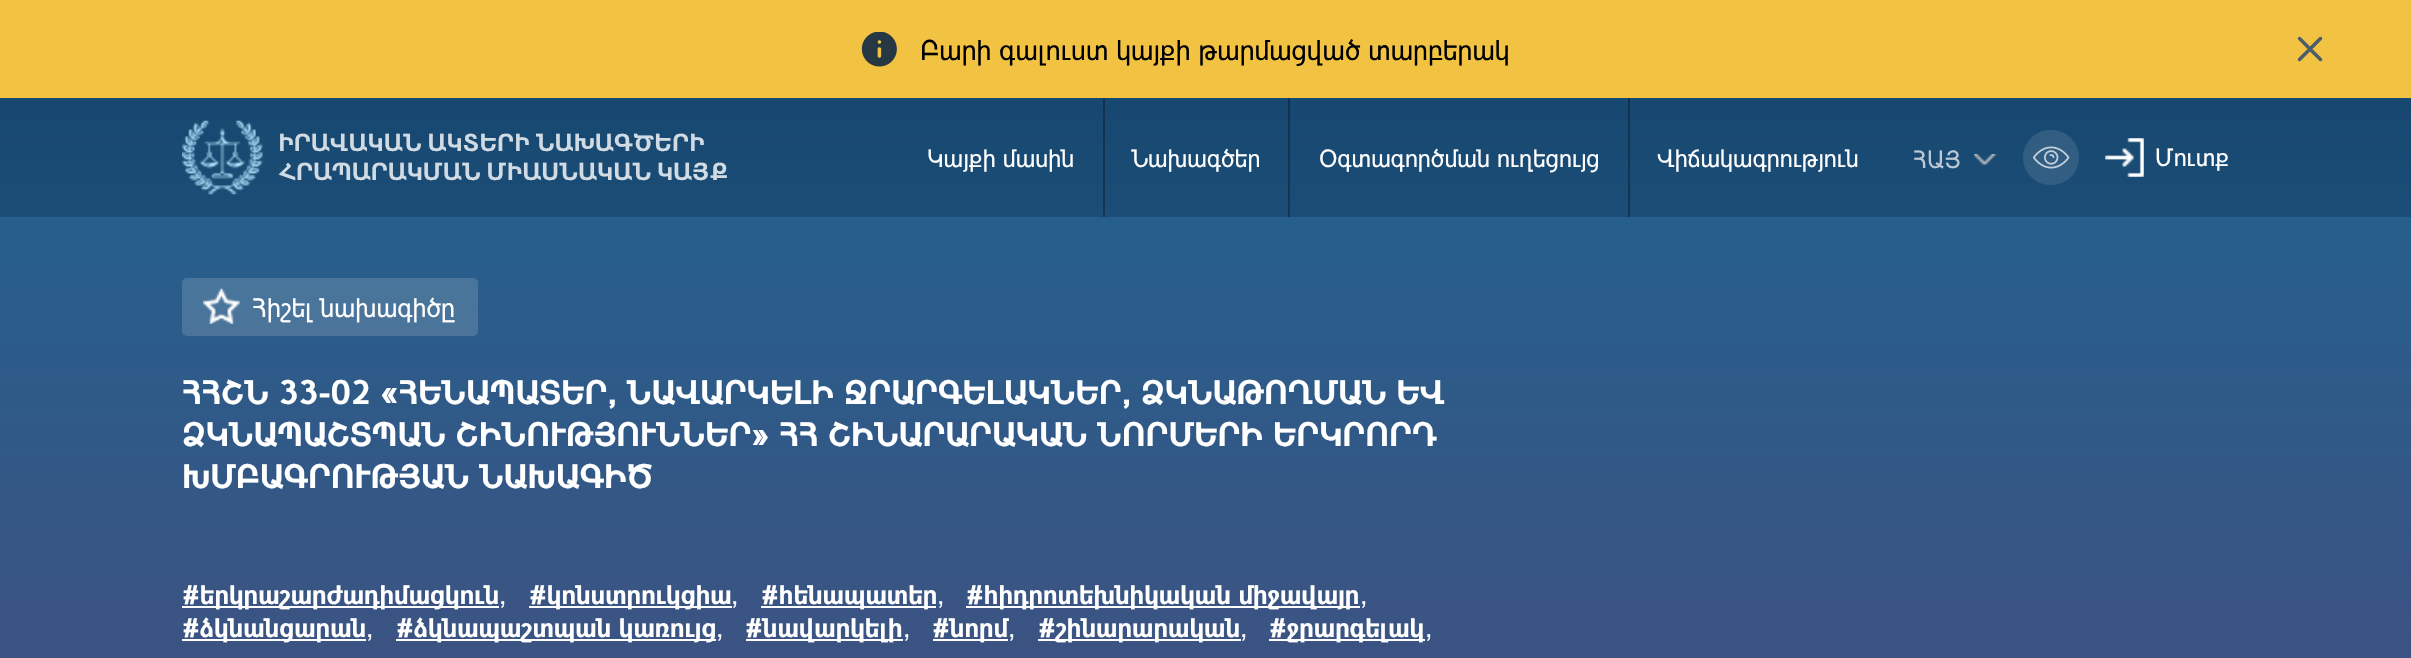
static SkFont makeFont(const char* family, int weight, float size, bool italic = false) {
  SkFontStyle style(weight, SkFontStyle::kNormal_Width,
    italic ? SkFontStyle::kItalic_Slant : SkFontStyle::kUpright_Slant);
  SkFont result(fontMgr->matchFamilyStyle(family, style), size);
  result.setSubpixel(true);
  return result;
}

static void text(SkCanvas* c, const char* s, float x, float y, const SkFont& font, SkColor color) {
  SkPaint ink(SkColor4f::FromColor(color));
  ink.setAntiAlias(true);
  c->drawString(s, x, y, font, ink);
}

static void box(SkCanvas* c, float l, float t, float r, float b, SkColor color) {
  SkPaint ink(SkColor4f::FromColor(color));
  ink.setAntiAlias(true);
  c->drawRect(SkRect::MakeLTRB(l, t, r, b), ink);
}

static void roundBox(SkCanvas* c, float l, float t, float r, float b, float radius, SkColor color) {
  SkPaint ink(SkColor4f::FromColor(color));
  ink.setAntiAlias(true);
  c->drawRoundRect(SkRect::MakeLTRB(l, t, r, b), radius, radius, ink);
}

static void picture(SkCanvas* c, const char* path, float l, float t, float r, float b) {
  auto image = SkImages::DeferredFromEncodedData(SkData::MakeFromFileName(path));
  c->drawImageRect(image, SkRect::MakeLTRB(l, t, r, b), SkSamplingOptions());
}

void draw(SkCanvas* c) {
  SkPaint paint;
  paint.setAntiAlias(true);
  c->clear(0xffffffff);
  {
    const SkColor colors[] = {0xff14436b, 0xff1b4d76};
    const float stops[] = {0, 1};
    const SkPoint ends[] = {{1206, 0}, {1206, 217}};
    paint.setShader(SkGradientShader::MakeLinear(ends, colors, stops, 2, SkTileMode::kClamp));
    paint.setAlpha(255);
  }
  c->drawRect(SkRect::MakeLTRB(0, 98, 2411, 217), paint);
  {
    const SkColor colors[] = {0xff0e2f4b, 0xff133653};
    const float stops[] = {0, 1};
    const SkPoint ends[] = {{1206, 0}, {1206, 217}};
    paint.setShader(SkGradientShader::MakeLinear(ends, colors, stops, 2, SkTileMode::kClamp));
    paint.setAlpha(255);
  }
  c->drawRect(SkRect::MakeLTRB(1628, 98, 1630, 217), paint);
  c->drawRect(SkRect::MakeLTRB(1288, 98, 1290, 217), paint);
  c->drawRect(SkRect::MakeLTRB(1103, 98, 1105, 217), paint);
  box(c, 0, 0, 2411, 98, 0xfff2c342);
  picture(c, "img_01.png", 861, 32, 897, 67);
  SkFont face1 = makeFont("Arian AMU", 400, 28);
  text(c, "Բարի գալուստ կայքի թարմացված տարբերակ", 920, 60, face1, 0xff000000);
  paint.setStyle(SkPaint::kStroke_Style);
  paint.setStrokeWidth(3.5f);
  paint.setStrokeCap(SkPaint::kRound_Cap);
  paint.setStrokeJoin(SkPaint::kRound_Join);
  paint.setShader(nullptr);
  paint.setColor(0xff4b5c6a);
  c->drawPath(SkPathBuilder().moveTo(2320.5f, 38.5f).lineTo(2299.5f, 59.5f).moveTo(2299.5f, 38.5f).lineTo(2320.5f, 59.5f).detach(), paint);
  picture(c, "img_02.png", 182, 120, 263, 195);
  SkFont face2 = makeFont("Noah", 600, 24.5f);
  text(c, "ԻՐԱՎԱԿԱՆ ԱԿՏԵՐԻ ՆԱԽԱԳԾԵՐԻ", 278, 151, face2, 0xffd1dbe3);
  text(c, "ՀՐԱՊԱՐԱԿՄԱՆ ՄԻԱՍՆԱԿԱՆ ԿԱՅՔ", 278, 180, face2, 0xffd1dbe3);
  SkFont face3 = makeFont("Arian AMU", 400, 24.5f);
  text(c, "Կայքի մասին", 927, 167, face3, 0xffffffff);
  text(c, "Նախագծեր", 1132, 167, face3, 0xffffffff);
  text(c, "Օգտագործման ուղեցույց", 1319, 167, face3, 0xffffffff);
  text(c, "Վիճակագրություն", 1657, 167, face3, 0xffffffff);
  text(c, "ՀԱՅ", 1913, 168, face3, 0xffbac9d5);
  picture(c, "img_03.png", 1974, 154, 1997, 165);
  picture(c, "img_04.png", 2023, 130, 2079, 185);
  picture(c, "img_05.png", 2105, 138, 2144, 177);
  text(c, "Մուտք", 2155, 166, face3, 0xffffffff);
  paint.setStyle(SkPaint::kFill_Style);
  {
    const SkColor colors[] = {0xff265f8c, 0xff484c7d};
    const float stops[] = {0, 1};
    const SkPoint ends[] = {{1206, 217}, {1206, 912}};
    paint.setShader(SkGradientShader::MakeLinear(ends, colors, stops, 2, SkTileMode::kClamp));
    paint.setAlpha(255);
  }
  c->drawRect(SkRect::MakeLTRB(0, 217, 2411, 658), paint);
  roundBox(c, 182, 278, 478, 336, 5, 0x26ffffff);
  picture(c, "img_06.png", 203, 288, 240, 324);
  SkFont face4 = makeFont("Arian AMU", 400, 26.25f);
  text(c, "Հիշել նախագիծը", 252, 317, face4, 0xffffffff);
  SkFont face5 = makeFont("Arian AMU", 700, 33.25f);
  text(c, "ՀՀՇՆ 33-02 «ՀԵՆԱՊԱՏԵՐ, ՆԱՎԱՐԿԵԼԻ ՋՐԱՐԳԵԼԱԿՆԵՐ, ՁԿՆԱԹՈՂՄԱՆ ԵՎ", 182, 404, face5, 0xffffffff);
  text(c, "ՁԿՆԱՊԱՇՏՊԱՆ ՇԻՆՈՒԹՅՈՒՆՆԵՐ» ՀՀ ՇԻՆԱՐԱՐԱԿԱՆ ՆՈՐՄԵՐԻ ԵՐԿՐՈՐԴ", 182, 446, face5, 0xffffffff);
  text(c, "ԽՄԲԱԳՐՈՒԹՅԱՆ ՆԱԽԱԳԻԾ", 182, 488, face5, 0xffffffff);
  box(c, 182, 606, 499, 608, 0xffffffff);
  SkFont face6 = makeFont("Arian AMU", 700, 26.25f);
  text(c, "#երկրաշարժադիմացկուն", 182, 604, face6, 0xffffffff);
  text(c, ",", 499, 604, face1, 0xffffffff);
  box(c, 529, 606, 732, 608, 0xffffffff);
  text(c, "#կոնստրուկցիա", 529, 604, face6, 0xffffffff);
  text(c, ",", 731, 604, face1, 0xffffffff);
  box(c, 761, 606, 936, 608, 0xffffffff);
  text(c, "#հենապատեր", 761, 604, face6, 0xffffffff);
  text(c, ",", 937, 604, face1, 0xffffffff);
  box(c, 966, 606, 1360, 608, 0xffffffff);
  text(c, "#հիդրոտեխնիկական միջավայր", 966, 604, face6, 0xffffffff);
  text(c, ",", 1360, 604, face1, 0xffffffff);
  box(c, 182, 639, 366, 641, 0xffffffff);
  text(c, "#ձկնանցարան", 182, 637, face6, 0xffffffff);
  text(c, ",", 366, 637, face1, 0xffffffff);
  box(c, 396, 639, 716, 641, 0xffffffff);
  text(c, "#ձկնապաշտպան կառույց", 396, 637, face6, 0xffffffff);
  text(c, ",", 716, 637, face1, 0xffffffff);
  box(c, 746, 639, 903, 641, 0xffffffff);
  text(c, "#նավարկելի", 745, 637, face6, 0xffffffff);
  text(c, ",", 903, 637, face1, 0xffffffff);
  box(c, 933, 639, 1008, 641, 0xffffffff);
  text(c, "#նորմ", 932, 637, face6, 0xffffffff);
  text(c, ",", 1008, 637, face1, 0xffffffff);
  box(c, 1038, 639, 1241, 641, 0xffffffff);
  text(c, "#շինարարական", 1038, 637, face6, 0xffffffff);
  text(c, ",", 1240, 637, face1, 0xffffffff);
  box(c, 1269, 639, 1425, 641, 0xffffffff);
  text(c, "#ջրարգելակ", 1269, 637, face6, 0xffffffff);
  text(c, ",", 1425, 637, face1, 0xffffffff);
}
